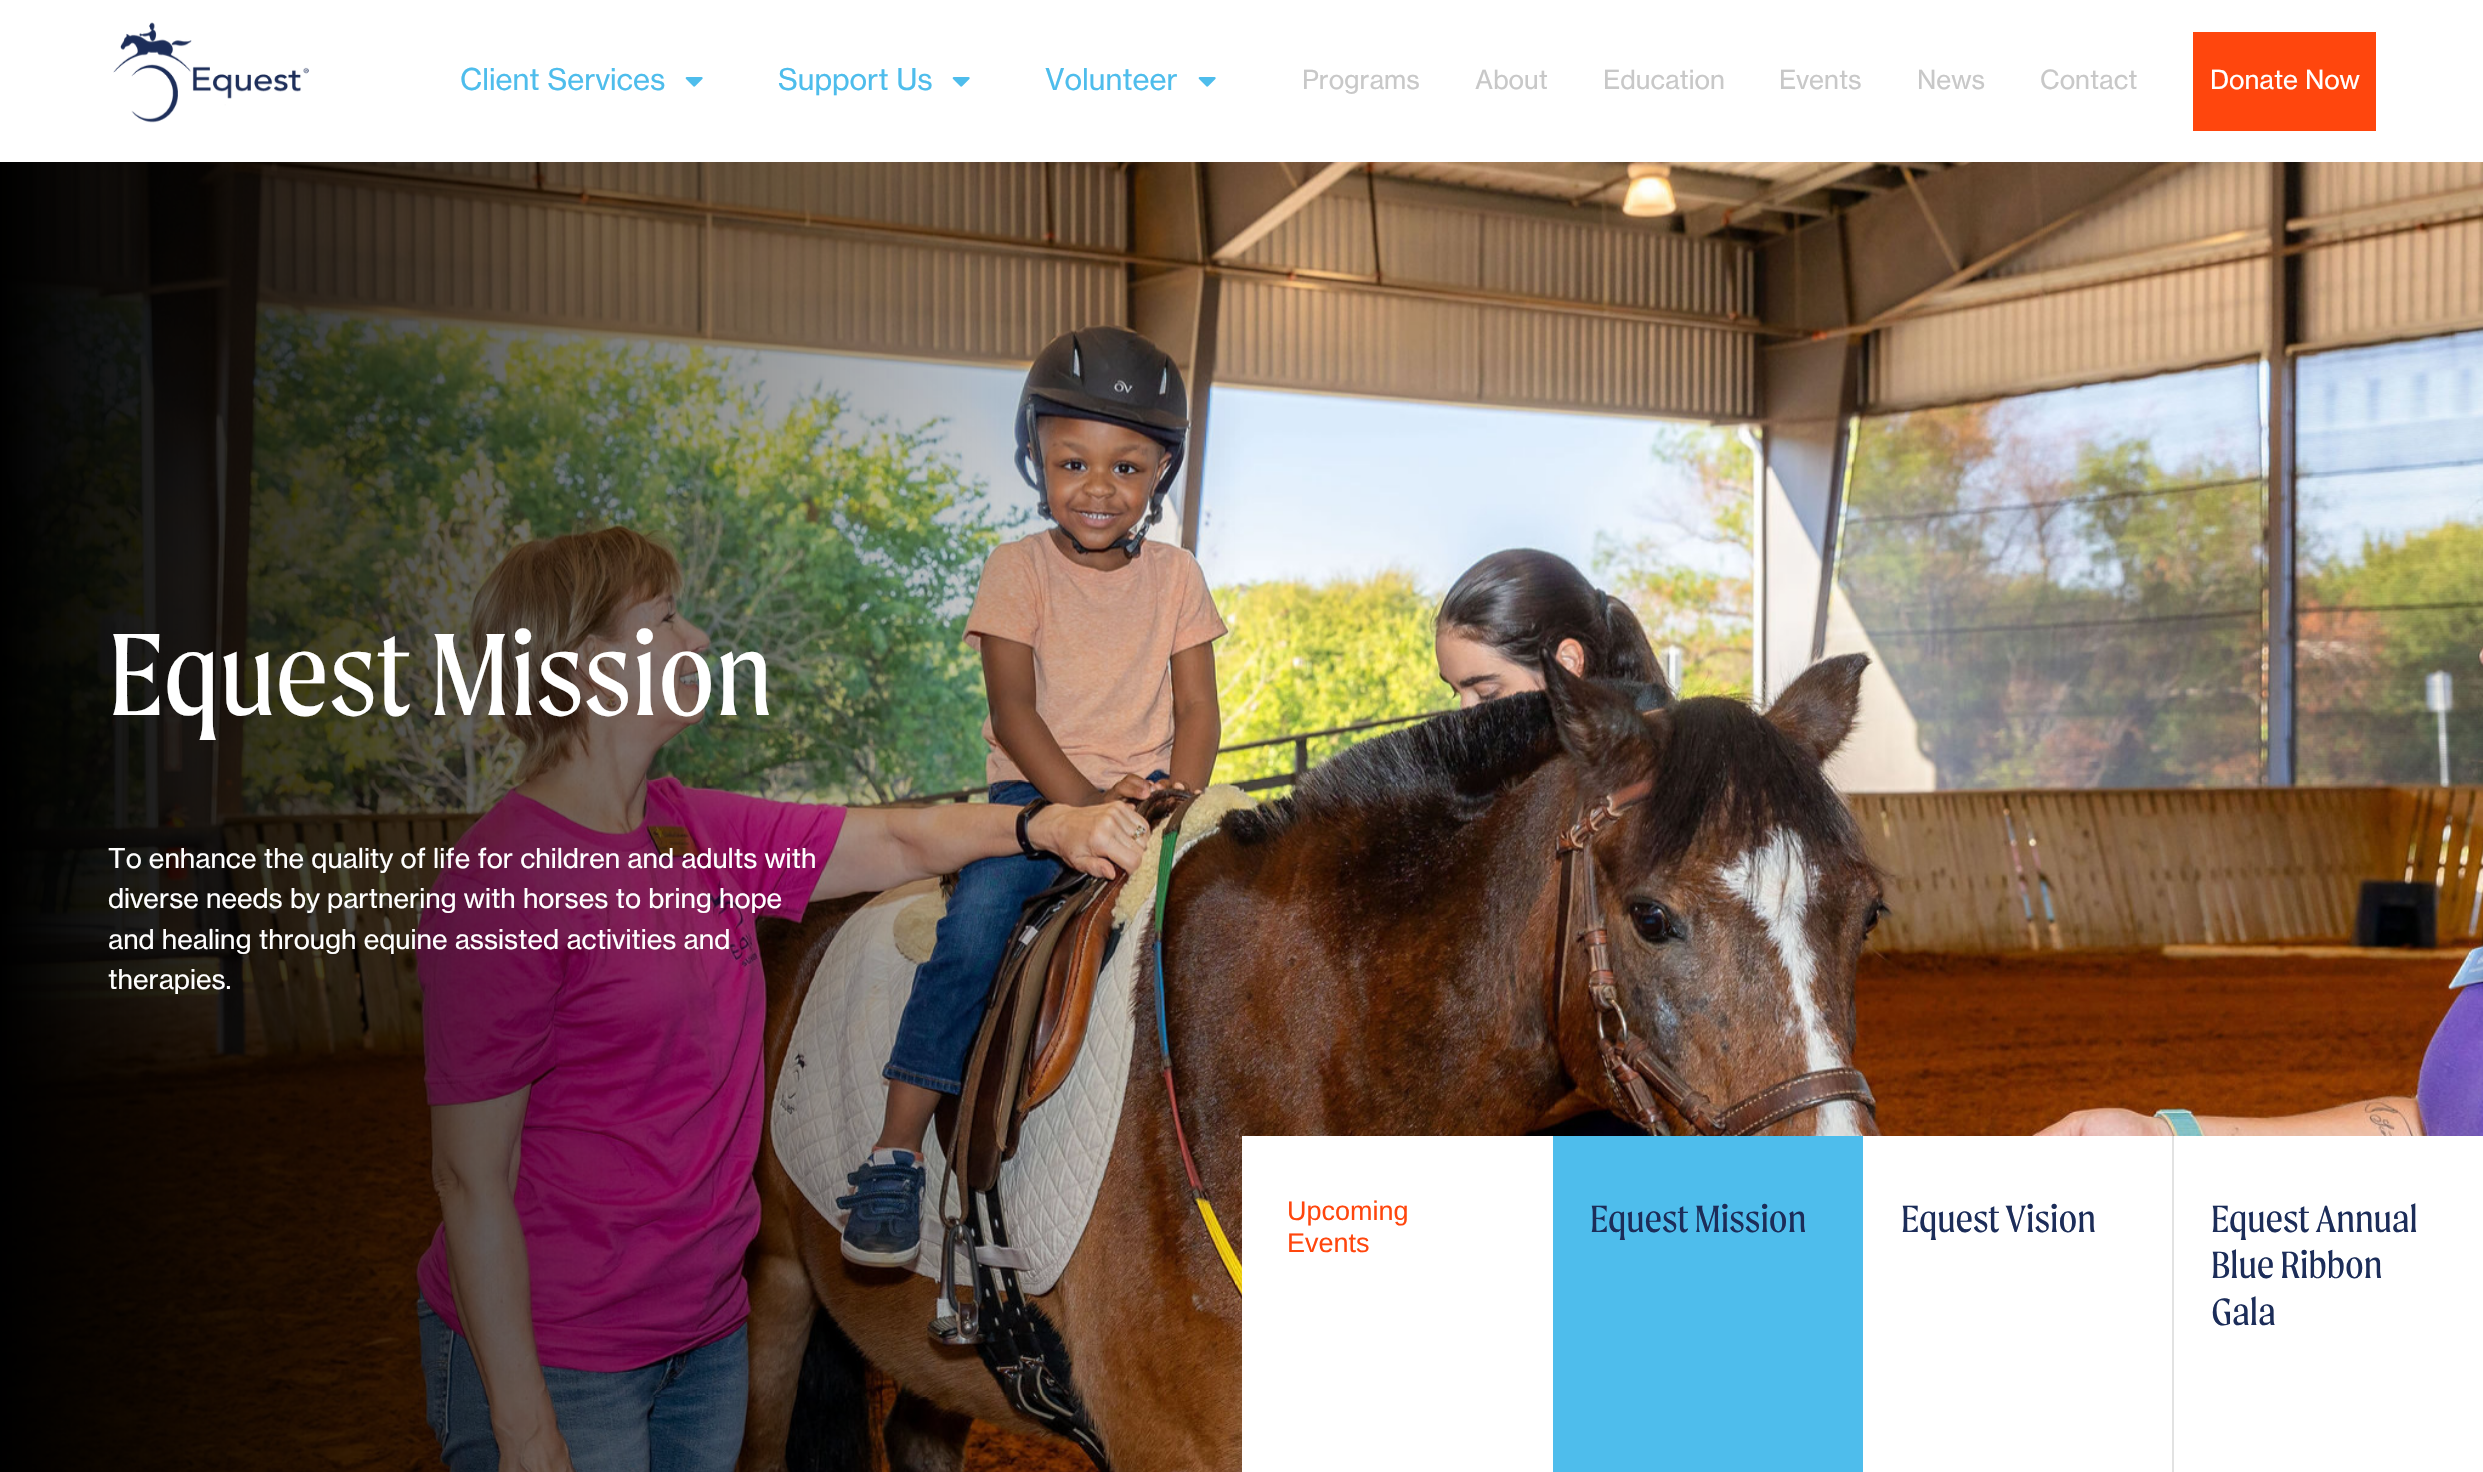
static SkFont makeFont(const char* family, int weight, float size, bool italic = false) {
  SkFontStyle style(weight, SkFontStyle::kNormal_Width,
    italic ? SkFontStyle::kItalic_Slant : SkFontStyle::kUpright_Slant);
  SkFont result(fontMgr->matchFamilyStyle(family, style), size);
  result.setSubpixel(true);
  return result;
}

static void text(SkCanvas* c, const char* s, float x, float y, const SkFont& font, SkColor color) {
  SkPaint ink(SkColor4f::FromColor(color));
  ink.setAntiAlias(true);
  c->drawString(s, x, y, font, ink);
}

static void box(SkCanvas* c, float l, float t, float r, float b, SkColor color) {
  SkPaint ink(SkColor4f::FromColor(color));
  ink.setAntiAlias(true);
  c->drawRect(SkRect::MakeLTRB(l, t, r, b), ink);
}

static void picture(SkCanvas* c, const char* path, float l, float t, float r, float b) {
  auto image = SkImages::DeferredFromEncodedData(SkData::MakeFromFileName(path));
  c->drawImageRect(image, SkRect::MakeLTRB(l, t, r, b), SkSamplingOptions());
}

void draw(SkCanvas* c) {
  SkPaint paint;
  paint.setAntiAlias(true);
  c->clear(0xffffffff);
  picture(c, "img_01.png", 113, 22, 309, 123);
  SkFont face1 = makeFont("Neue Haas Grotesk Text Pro", 400, 29.5f);
  text(c, "Client Services", 460, 90, face1, 0xff4ebdec);
  picture(c, "img_02.png", 685, 77, 703, 87);
  text(c, "Support Us", 778, 90, face1, 0xff4ebdec);
  picture(c, "img_02.png", 952, 77, 970, 87);
  text(c, "Volunteer", 1045, 90, face1, 0xff4ebdec);
  picture(c, "img_02.png", 1198, 77, 1216, 87);
  SkFont face2 = makeFont("Neue Haas Grotesk Text Pro", 400, 26);
  text(c, "Programs", 1302, 89, face2, 0xffc8c8c8);
  text(c, "About", 1475, 89, face2, 0xffc8c8c8);
  text(c, "Education", 1603, 89, face2, 0xffc8c8c8);
  text(c, "Events", 1779, 89, face2, 0xffc8c8c8);
  text(c, "News", 1917, 89, face2, 0xffc8c8c8);
  text(c, "Contact", 2040, 89, face2, 0xffc8c8c8);
  box(c, 2193, 32, 2376, 131, 0xffff460d);
  text(c, "Donate Now", 2210, 89, face2, 0xffffffff);
  picture(c, "img_03.png", 0, 162, 2483, 1472);
  SkFont face3 = makeFont("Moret", 400, 124.5f);
  text(c, "Equest Mission", 108, 715, face3, 0xffffffff);
  SkFont face4 = makeFont("Neue Haas Grotesk Text Pro", 400, 27);
  text(c, "To enhance the quality of life for children and adults with", 108, 868, face4, 0xffffffff);
  text(c, "diverse needs by partnering with horses to bring hope", 108, 908, face4, 0xffffffff);
  text(c, "and healing through equine assisted activities and", 108, 949, face4, 0xffffffff);
  text(c, "therapies.", 108, 989, face4, 0xffffffff);
  box(c, 1242, 1136, 2483, 1472, 0xffffffff);
  SkFont face5 = makeFont("Liberation Sans", 400, 27);
  text(c, "Upcoming", 1287, 1220, face5, 0xffff460d);
  text(c, "Events", 1287, 1252, face5, 0xffff460d);
  box(c, 1553, 1136, 1863, 1472, 0xff4ebdec);
  SkFont face6 = makeFont("Moret", 400, 40.5f);
  text(c, "Equest Mission", 1590, 1232, face6, 0xff1c2d59);
  box(c, 2172, 1136, 2174, 1472, 0xffe2e2e2);
  text(c, "Equest Vision", 1901, 1232, face6, 0xff1c2d59);
  text(c, "Equest Annual", 2211, 1232, face6, 0xff1c2d59);
  text(c, "Blue Ribbon", 2211, 1278, face6, 0xff1c2d59);
  text(c, "Gala", 2211, 1325, face6, 0xff1c2d59);
}
